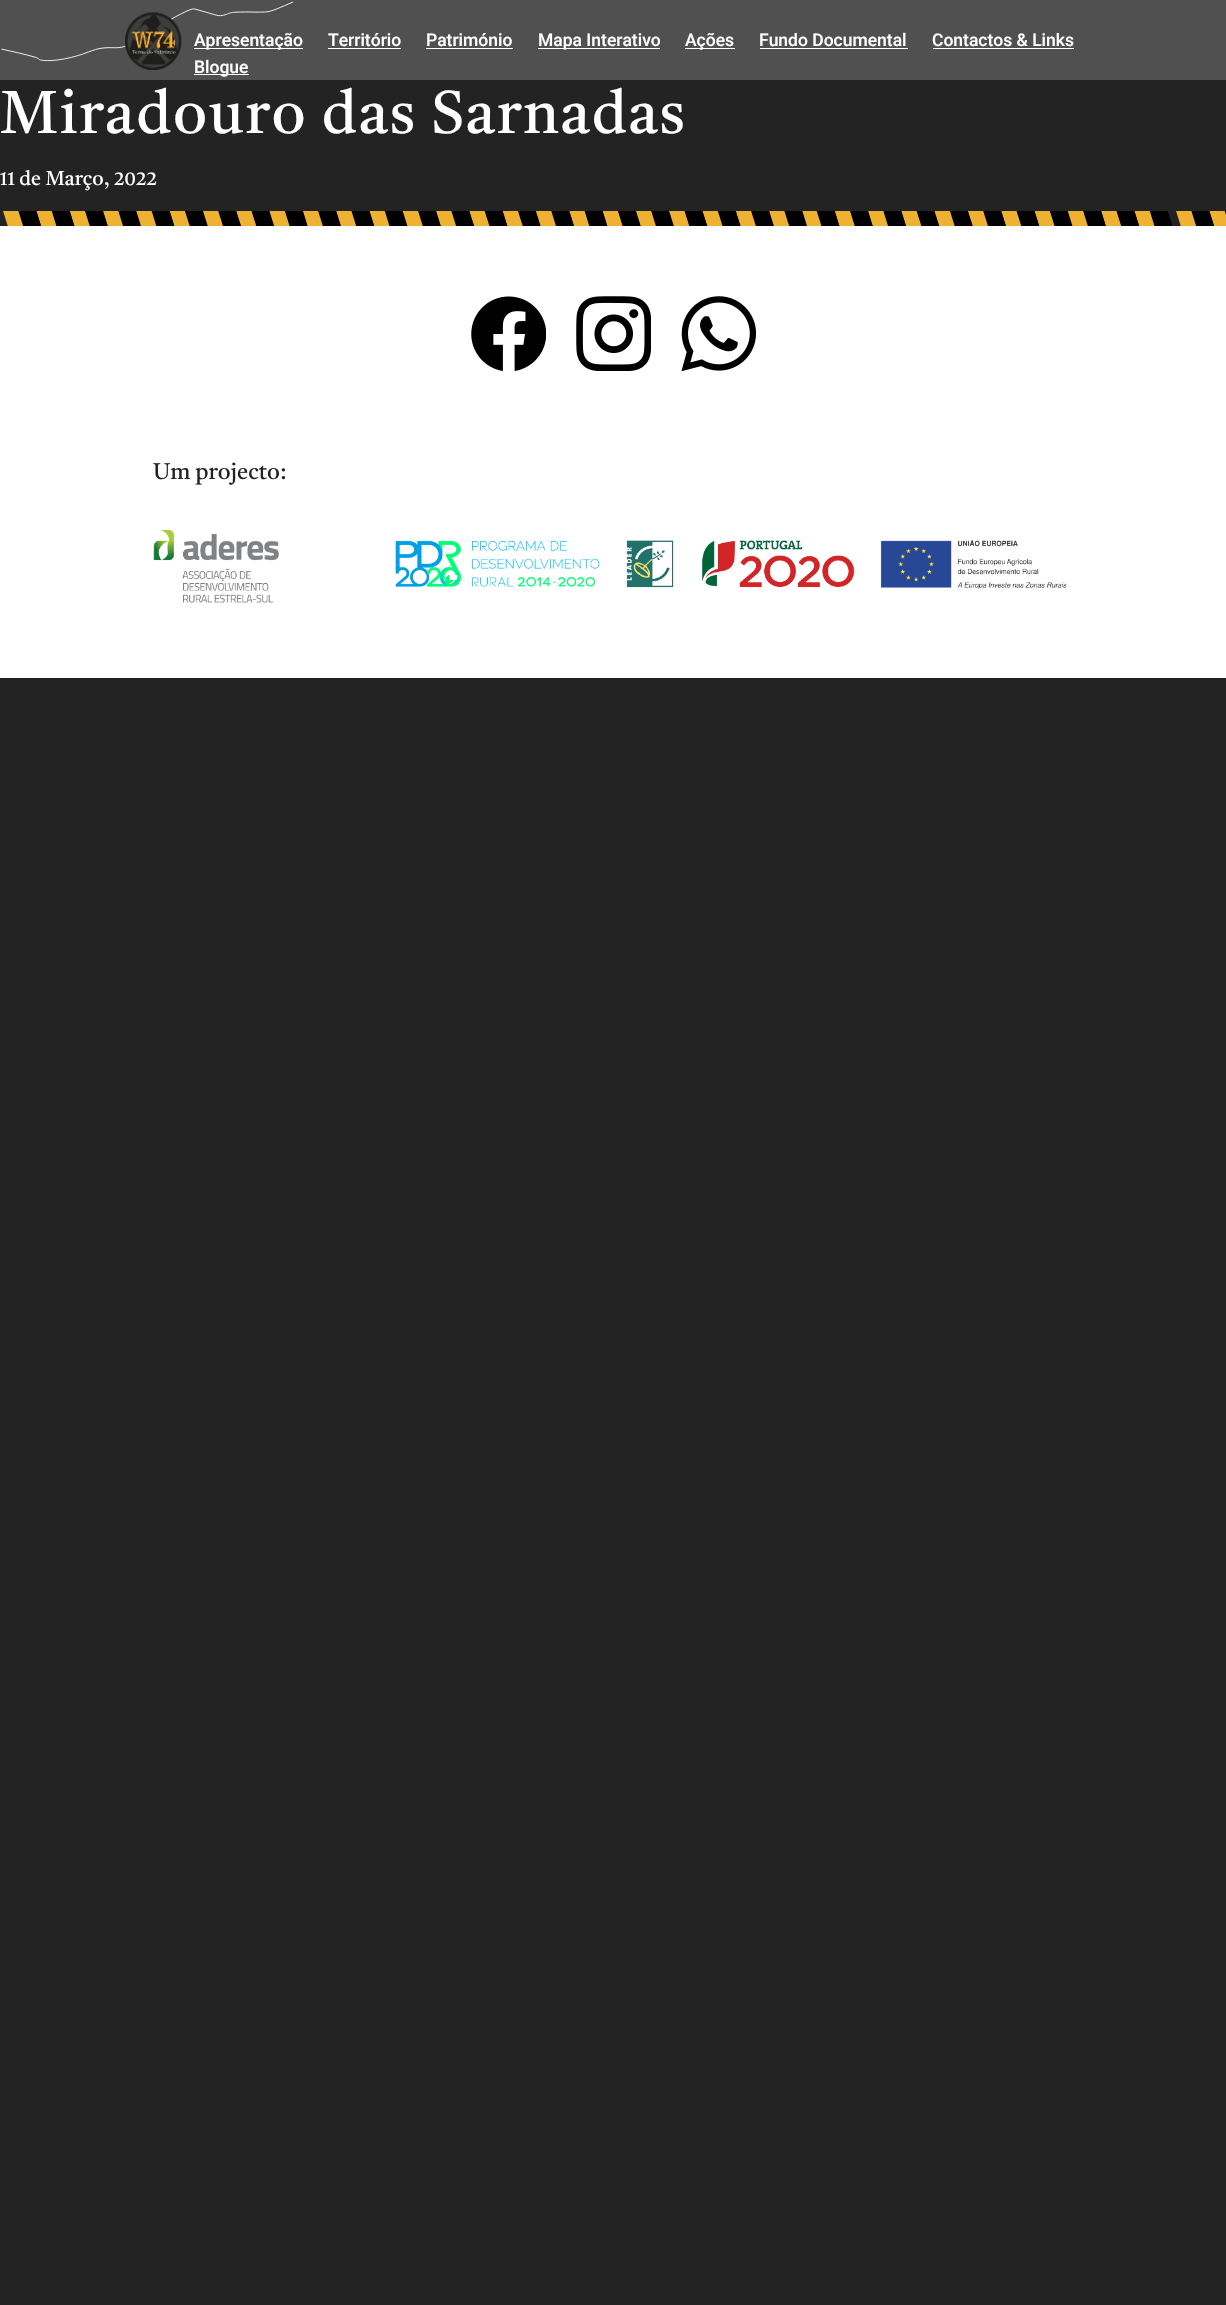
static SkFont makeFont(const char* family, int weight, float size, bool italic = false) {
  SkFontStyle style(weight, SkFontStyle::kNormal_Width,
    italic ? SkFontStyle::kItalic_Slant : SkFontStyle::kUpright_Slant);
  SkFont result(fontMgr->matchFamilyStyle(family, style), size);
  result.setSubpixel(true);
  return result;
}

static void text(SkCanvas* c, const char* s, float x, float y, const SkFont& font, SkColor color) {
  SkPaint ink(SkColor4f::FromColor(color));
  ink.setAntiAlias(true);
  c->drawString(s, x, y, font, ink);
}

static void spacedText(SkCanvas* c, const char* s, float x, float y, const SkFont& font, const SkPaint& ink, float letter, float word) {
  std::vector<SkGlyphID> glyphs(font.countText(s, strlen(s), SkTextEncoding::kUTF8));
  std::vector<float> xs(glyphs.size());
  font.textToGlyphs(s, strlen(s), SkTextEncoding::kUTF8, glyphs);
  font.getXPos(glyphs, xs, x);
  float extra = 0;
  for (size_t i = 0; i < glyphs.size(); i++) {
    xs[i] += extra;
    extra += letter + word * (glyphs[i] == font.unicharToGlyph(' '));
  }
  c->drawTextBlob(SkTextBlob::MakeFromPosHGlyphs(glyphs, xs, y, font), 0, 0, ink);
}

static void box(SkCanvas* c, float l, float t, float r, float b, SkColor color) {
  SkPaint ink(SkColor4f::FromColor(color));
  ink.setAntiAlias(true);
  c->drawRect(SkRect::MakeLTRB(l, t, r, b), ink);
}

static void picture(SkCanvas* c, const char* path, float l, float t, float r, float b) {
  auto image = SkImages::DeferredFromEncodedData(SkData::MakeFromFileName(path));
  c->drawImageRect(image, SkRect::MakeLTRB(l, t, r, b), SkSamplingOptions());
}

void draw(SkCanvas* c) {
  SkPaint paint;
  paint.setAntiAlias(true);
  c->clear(0xff232323);
  box(c, 0, 0, 1226, 80, 0xff505050);
  box(c, 194, 48, 303, 49, 0xffffffff);
  SkFont face1 = makeFont("Roboto", 500, 17.5f);
  text(c, "Apresentação", 194, 46, face1, 0xffffffff);
  box(c, 194, 74, 249, 75, 0xffffffff);
  text(c, "Blogue", 194, 73, face1, 0xffffffff);
  picture(c, "img_01.png", 1, 1, 294, 62);
  picture(c, "img_02.png", 125, 12, 182, 70);
  text(c, "Território", 328, 46, face1, 0xffffffff);
  box(c, 328, 48, 401, 49, 0xffffffff);
  text(c, "Património", 426, 46, face1, 0xffffffff);
  box(c, 426, 48, 513, 49, 0xffffffff);
  box(c, 538, 48, 660, 49, 0xffffffff);
  text(c, "Mapa Interativo", 538, 46, face1, 0xffffffff);
  box(c, 685, 48, 735, 49, 0xffffffff);
  text(c, "Ações", 685, 46, face1, 0xffffffff);
  text(c, "Fundo Documental", 759, 46, face1, 0xffffffff);
  box(c, 760, 48, 908, 49, 0xffffffff);
  text(c, "Contactos & Links", 932, 46, face1, 0xffffffff);
  box(c, 933, 48, 1074, 49, 0xffffffff);
  SkFont face2 = makeFont("Castoro", 400, 60);
  paint.setColor(0xffffffff);
  spacedText(c, "Miradouro das Sarnadas", 0, 133, face2, paint, 1.5f, 0);
  SkFont face3 = makeFont("Castoro", 400, 20);
  text(c, "11 de Março, 2022", 0, 185, face3, 0xffffffff);
  box(c, 0, 226, 1226, 678, 0xffffffff);
  picture(c, "img_03.png", 3, 211, 1226, 226);
  picture(c, "img_04.png", 471, 296, 546, 371);
  picture(c, "img_05.png", 576, 296, 651, 371);
  picture(c, "img_06.png", 681, 296, 756, 371);
  SkFont face4 = makeFont("Castoro", 400, 22.5f);
  text(c, "Um projecto:", 153, 479, face4, 0xff232323);
  picture(c, "img_07.png", 153, 530, 279, 603);
  picture(c, "img_08.png", 395, 539, 1067, 589);
}
